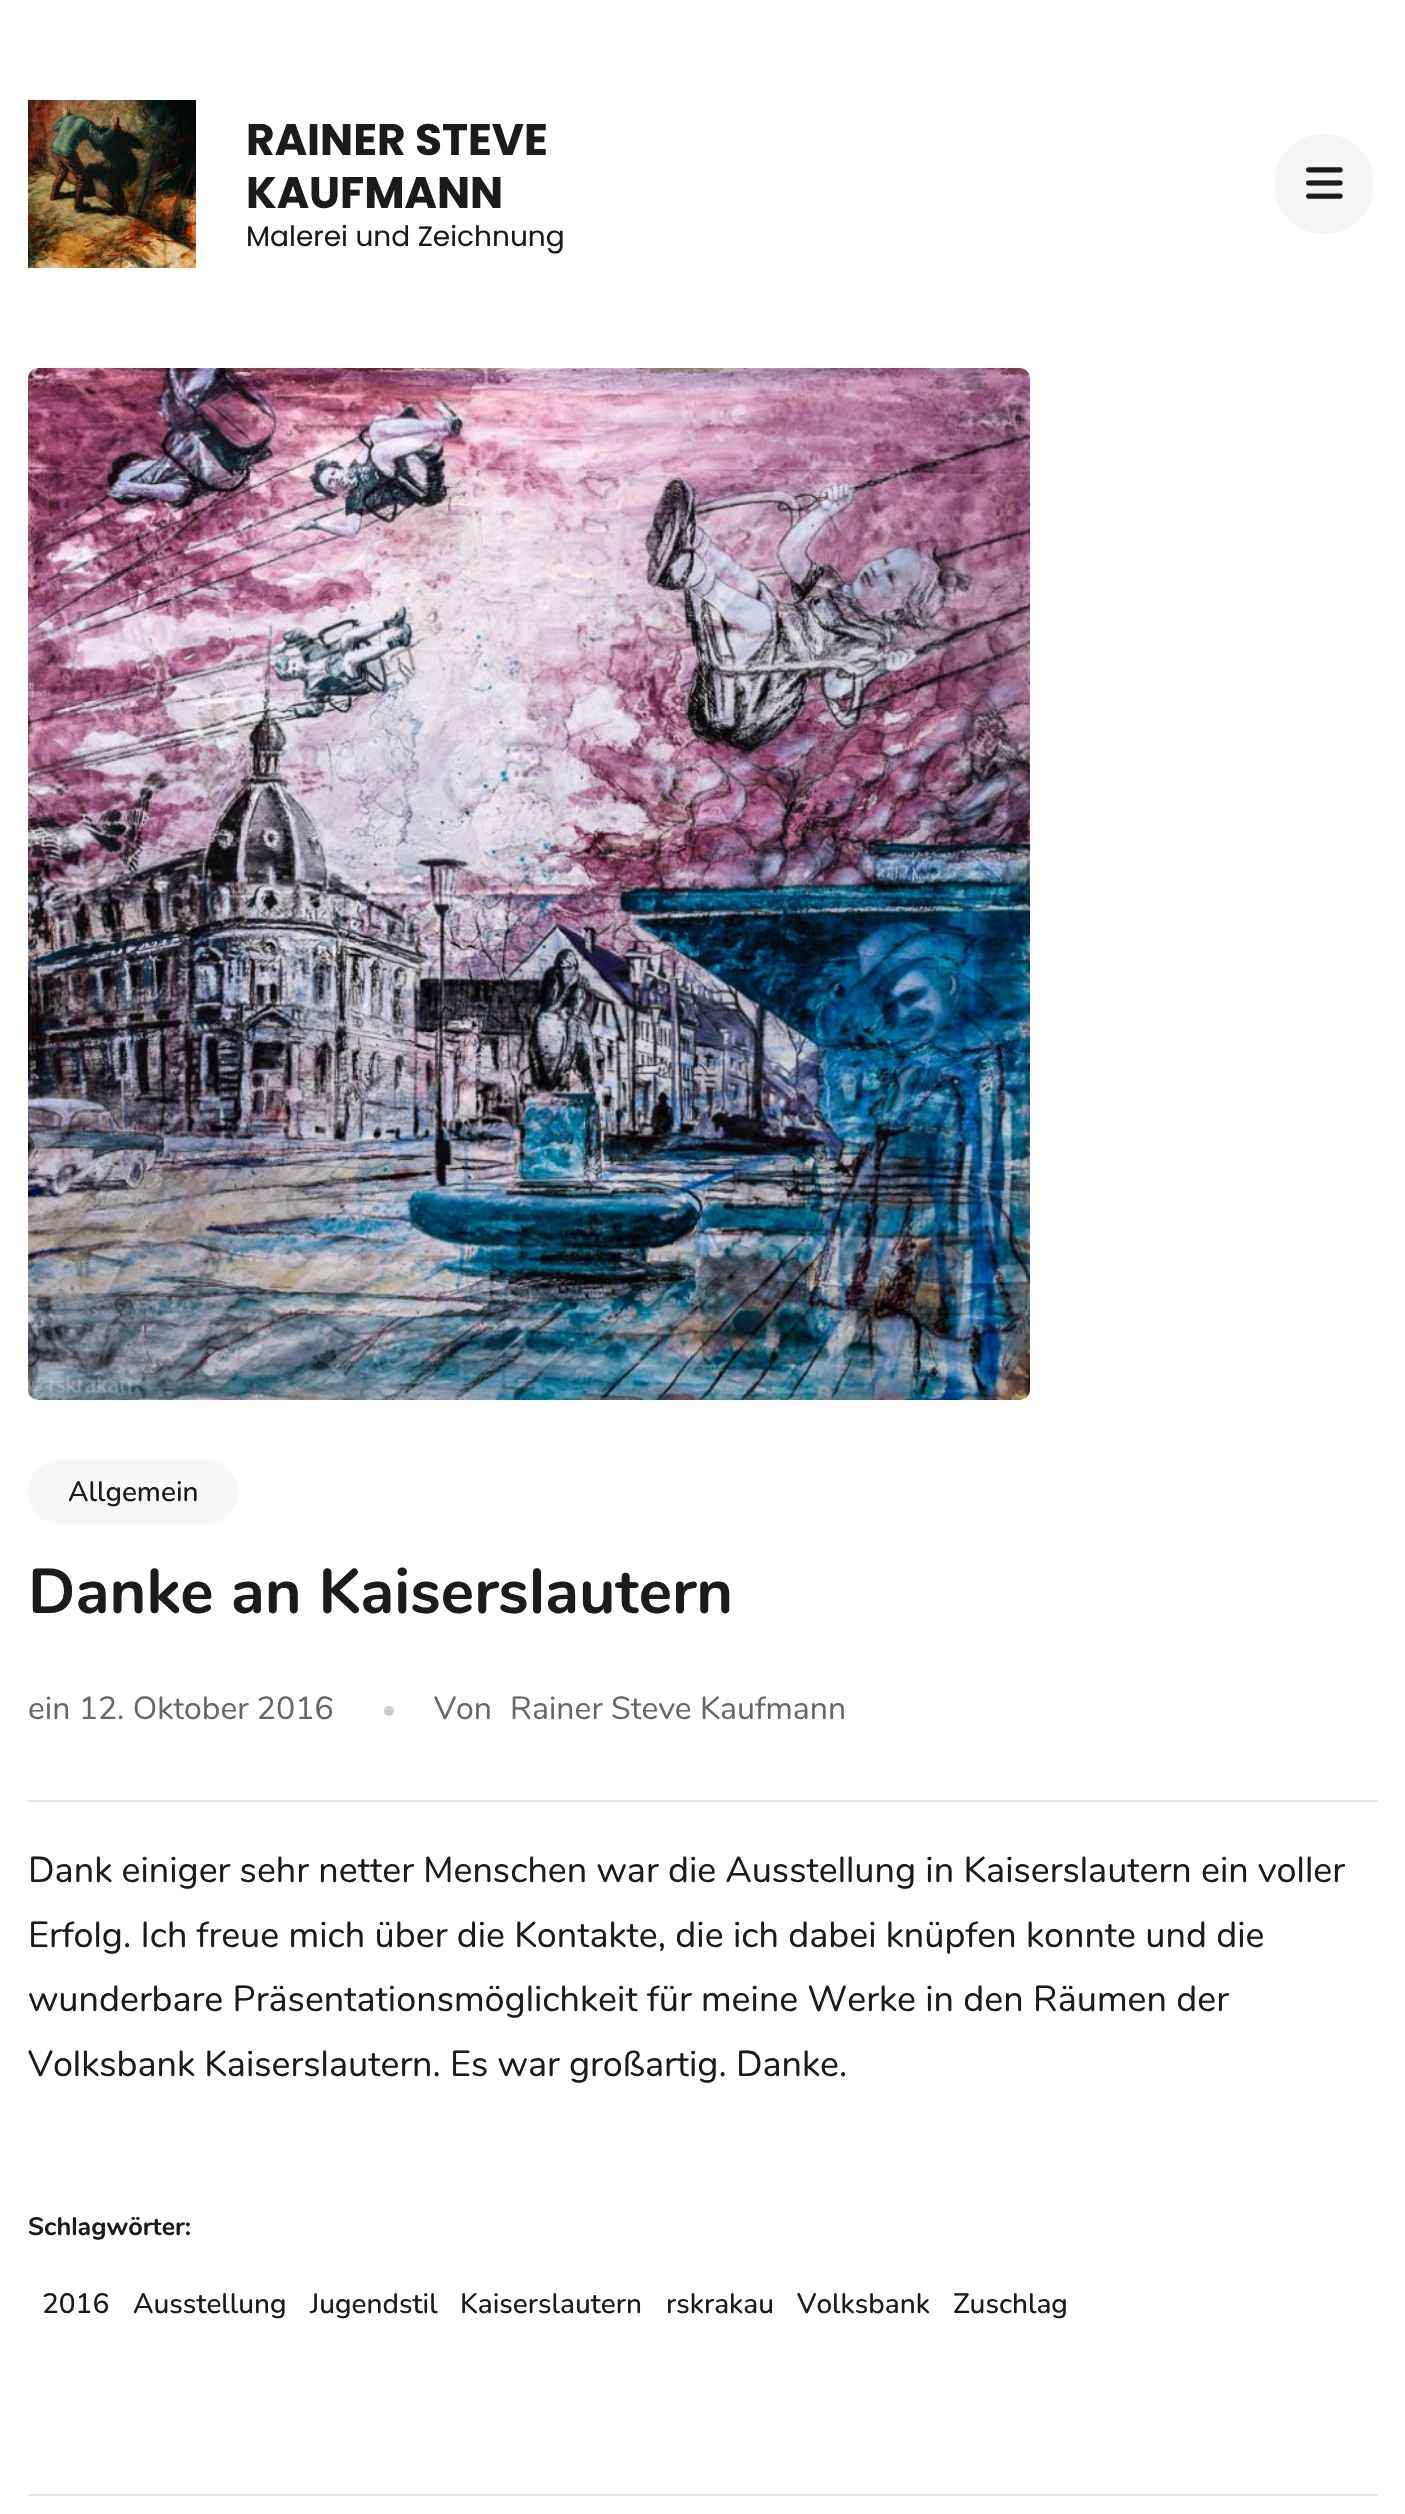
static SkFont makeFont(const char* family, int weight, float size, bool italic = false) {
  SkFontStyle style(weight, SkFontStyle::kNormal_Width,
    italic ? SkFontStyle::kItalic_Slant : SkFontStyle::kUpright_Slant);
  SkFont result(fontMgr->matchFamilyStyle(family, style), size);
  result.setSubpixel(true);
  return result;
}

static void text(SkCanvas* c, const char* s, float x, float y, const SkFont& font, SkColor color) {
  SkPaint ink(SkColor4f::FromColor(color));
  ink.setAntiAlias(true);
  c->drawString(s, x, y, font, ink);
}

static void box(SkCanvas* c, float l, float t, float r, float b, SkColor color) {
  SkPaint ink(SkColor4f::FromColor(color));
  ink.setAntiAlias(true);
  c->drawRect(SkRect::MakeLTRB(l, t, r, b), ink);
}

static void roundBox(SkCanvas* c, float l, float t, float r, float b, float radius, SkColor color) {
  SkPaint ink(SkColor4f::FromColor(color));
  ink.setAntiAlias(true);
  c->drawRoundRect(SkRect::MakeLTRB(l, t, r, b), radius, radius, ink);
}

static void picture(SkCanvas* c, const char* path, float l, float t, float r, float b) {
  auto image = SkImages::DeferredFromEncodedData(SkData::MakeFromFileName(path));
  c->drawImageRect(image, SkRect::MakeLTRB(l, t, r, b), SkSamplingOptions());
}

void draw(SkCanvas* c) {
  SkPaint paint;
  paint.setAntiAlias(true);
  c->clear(0xffffffff);
  picture(c, "img_01.png", 28, 100, 196, 268);
  SkFont face1 = makeFont("Poppins", 700, 44);
  text(c, "RAINER STEVE", 246, 155, face1, 0xff1c1b1b);
  text(c, "KAUFMANN", 246, 208, face1, 0xff1c1b1b);
  SkFont face2 = makeFont("Poppins", 400, 28);
  text(c, "Malerei und Zeichnung", 246, 246, face2, 0xff1c1b1b);
  paint.setColor(0xfff5f5f5);
  c->drawCircle(1324, 184, 50, paint);
  picture(c, "img_02.png", 1306, 167, 1343, 199);
  picture(c, "img_03.png", 28, 368, 1030, 1400);
  roundBox(c, 28, 1460, 238, 1524, 32, 0xfff8f8f8);
  SkFont face3 = makeFont("Nunito", 500, 28);
  text(c, "Allgemein", 68, 1501, face3, 0xff1c1b1b);
  SkFont face4 = makeFont("Nunito", 700, 63);
  text(c, "Danke an Kaiserslautern", 28, 1613, face4, 0xff1c1b1b);
  SkFont face5 = makeFont("Nunito", 400, 32);
  text(c, "ein 12. Oktober 2016", 28, 1719, face5, 0xff676767);
  paint.setColor(0xffcccccc);
  c->drawCircle(389, 1711, 5, paint);
  text(c, "Von", 434, 1719, face5, 0xff676767);
  text(c, "Rainer Steve Kaufmann", 510, 1719, face5, 0xff676767);
  box(c, 28, 1800, 1378, 1802, 0xffe6e6e6);
  SkFont face6 = makeFont("Nunito", 400, 36);
  text(c, "Dank einiger sehr netter Menschen war die Ausstellung in Kaiserslautern ein voller", 28, 1882, face6, 0xff1c1b1b);
  text(c, "Erfolg. Ich freue mich über die Kontakte, die ich dabei knüpfen konnte und die", 28, 1947, face6, 0xff1c1b1b);
  text(c, "wunderbare Präsentationsmöglichkeit für meine Werke in den Räumen der", 28, 2011, face6, 0xff1c1b1b);
  text(c, "Volksbank Kaiserslautern. Es war großartig. Danke.", 28, 2076, face6, 0xff1c1b1b);
  SkFont face7 = makeFont("Nunito", 700, 25.25f);
  text(c, "Schlagwörter:", 28, 2235, face7, 0xff1c1b1b);
  text(c, "2016", 42, 2313, face3, 0xff1c1b1b);
  text(c, "Ausstellung", 133, 2313, face3, 0xff1c1b1b);
  text(c, "Jugendstil", 310, 2313, face3, 0xff1c1b1b);
  text(c, "Kaiserslautern", 460, 2313, face3, 0xff1c1b1b);
  text(c, "rskrakau", 666, 2313, face3, 0xff1c1b1b);
  text(c, "Volksbank", 797, 2313, face3, 0xff1c1b1b);
  text(c, "Zuschlag", 953, 2313, face3, 0xff1c1b1b);
  box(c, 28, 2494, 1378, 2496, 0xffe5e5e5);
}
